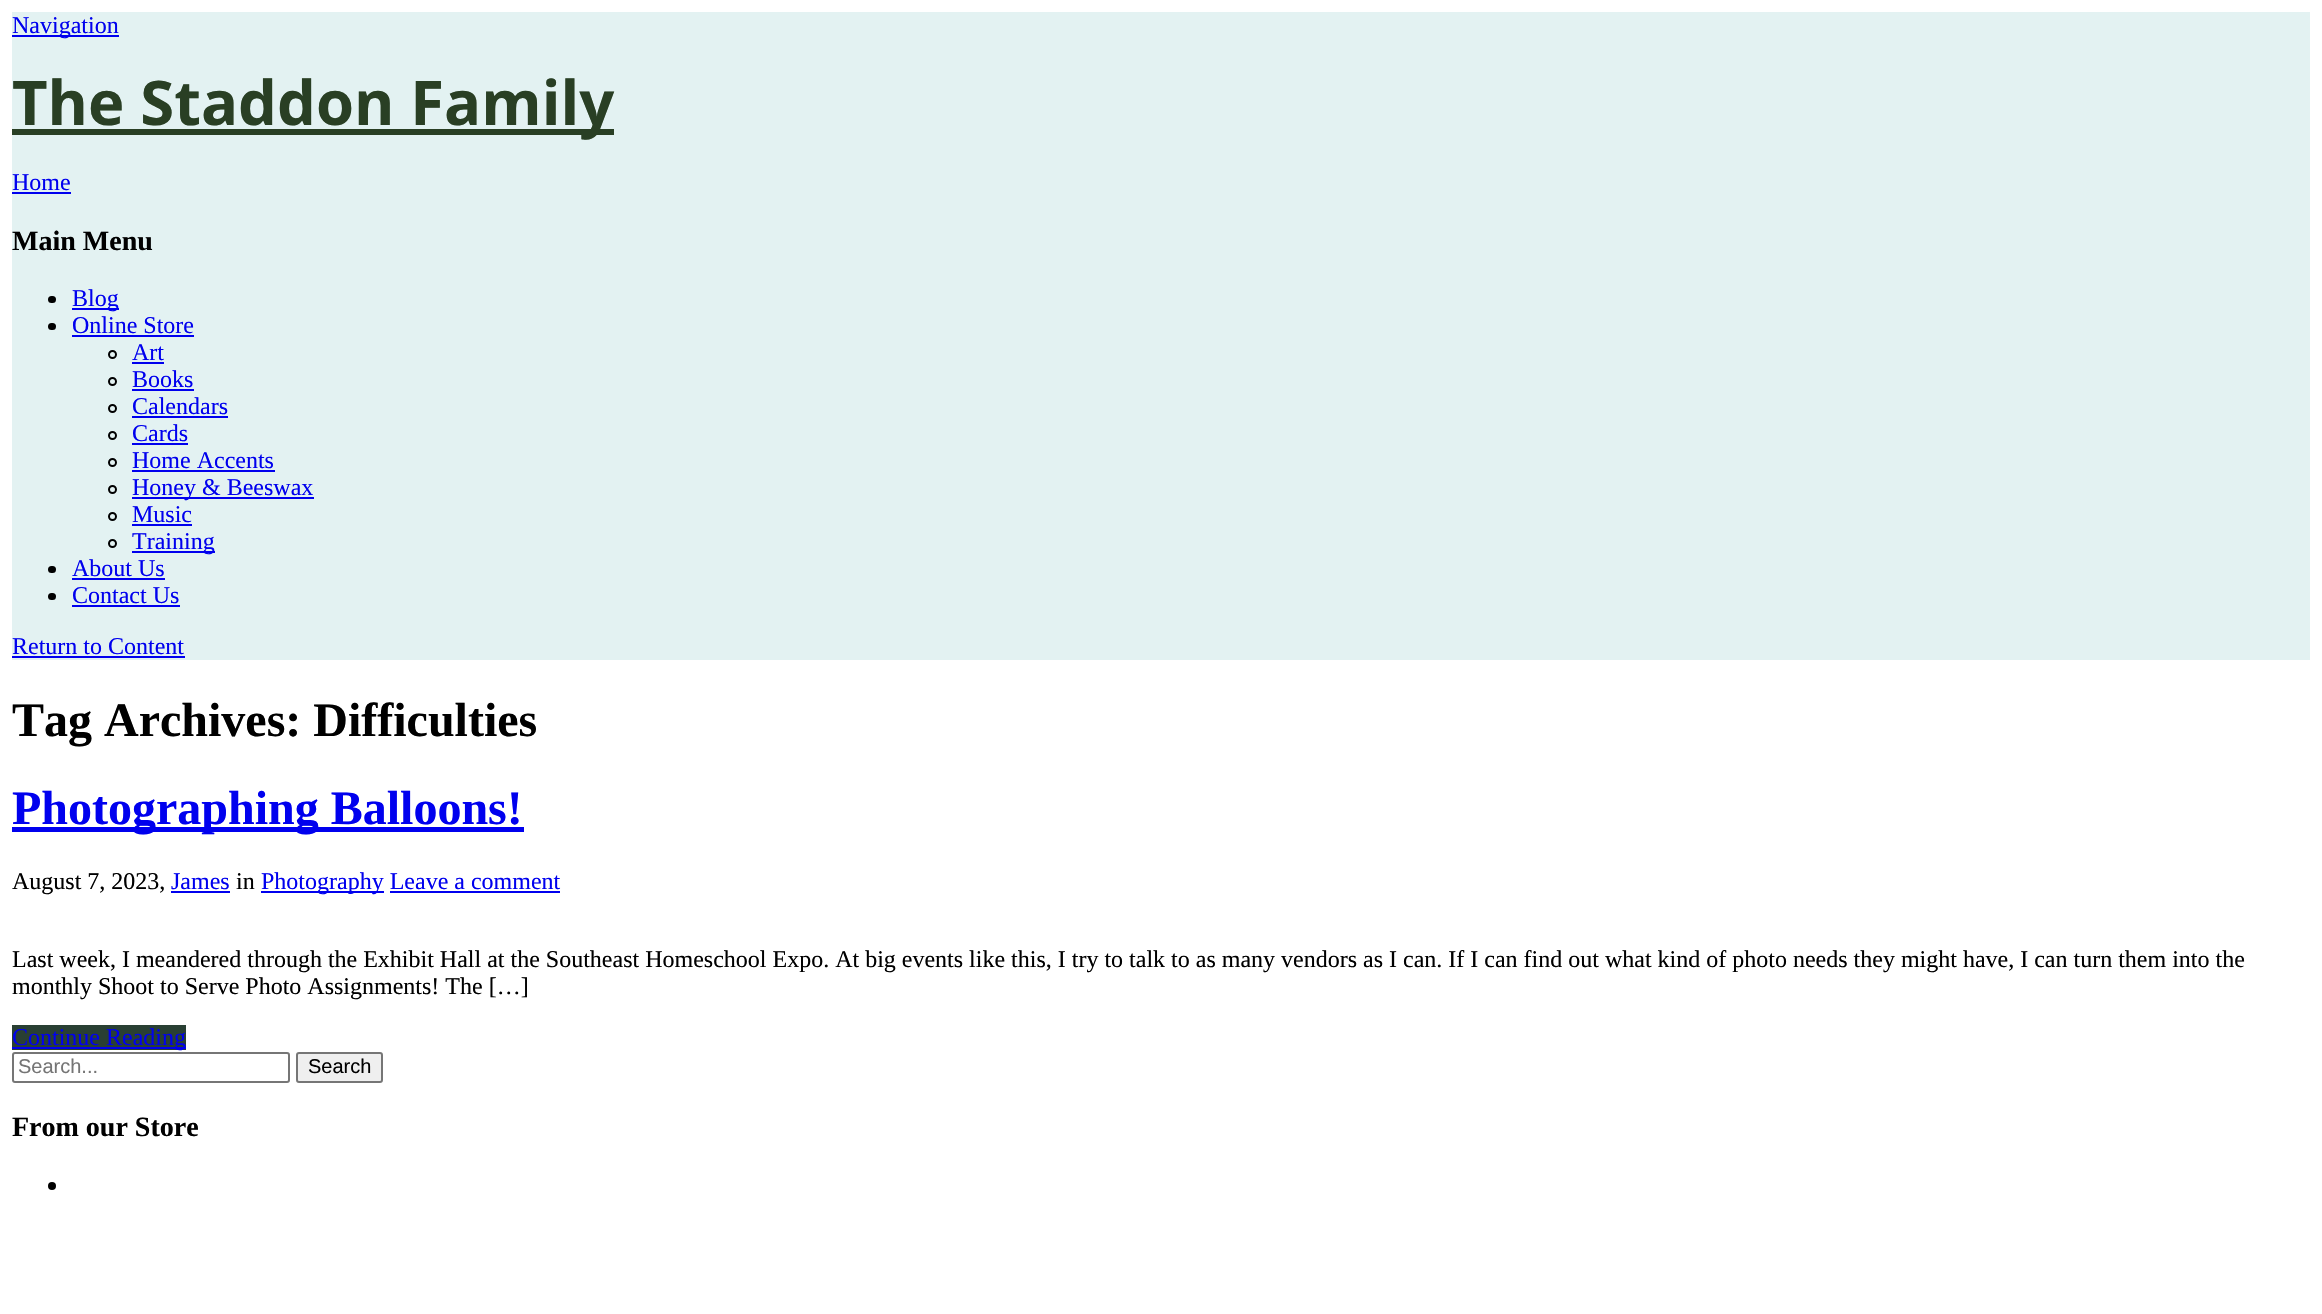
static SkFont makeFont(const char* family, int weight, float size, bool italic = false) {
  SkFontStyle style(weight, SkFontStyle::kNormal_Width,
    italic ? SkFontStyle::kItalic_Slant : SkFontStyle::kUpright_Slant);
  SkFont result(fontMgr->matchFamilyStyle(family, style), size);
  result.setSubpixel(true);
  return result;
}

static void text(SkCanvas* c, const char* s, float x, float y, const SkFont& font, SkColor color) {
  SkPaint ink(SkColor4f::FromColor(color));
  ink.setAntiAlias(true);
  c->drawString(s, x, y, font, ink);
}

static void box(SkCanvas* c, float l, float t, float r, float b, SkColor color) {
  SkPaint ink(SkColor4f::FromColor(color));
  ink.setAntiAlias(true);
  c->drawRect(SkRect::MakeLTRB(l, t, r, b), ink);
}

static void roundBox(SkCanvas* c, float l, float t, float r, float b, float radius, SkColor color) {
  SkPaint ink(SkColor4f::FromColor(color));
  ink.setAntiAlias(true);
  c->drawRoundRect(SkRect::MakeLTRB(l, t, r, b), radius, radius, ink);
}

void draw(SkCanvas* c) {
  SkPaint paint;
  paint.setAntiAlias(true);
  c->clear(0xffffffff);
  box(c, 12, 12, 2310, 660, 0xffe3f2f2);
  box(c, 12, 35, 119, 37, 0xff0000ee);
  SkFont face1 = makeFont("Liberation Serif", 400, 24);
  text(c, "Navigation", 12, 33, face1, 0xff0000ee);
  box(c, 12, 129, 614, 135, 0xff293f24);
  SkFont face2 = makeFont("Open Sans", 700, 61.5f);
  text(c, "The Staddon Family", 12, 125, face2, 0xff293f24);
  text(c, "Home", 12, 190, face1, 0xff0000ee);
  box(c, 12, 192, 71, 194, 0xff0000ee);
  SkFont face3 = makeFont("Liberation Serif", 700, 28);
  text(c, "Main Menu", 12, 250, face3, 0xff000000);
  roundBox(c, 48, 296, 56, 303, 3.5f, 0xff000000);
  box(c, 72, 308, 119, 310, 0xff0000ee);
  text(c, "Blog", 72, 306, face1, 0xff0000ee);
  roundBox(c, 48, 323, 56, 330, 3.5f, 0xff000000);
  text(c, "Online Store", 72, 333, face1, 0xff0000ee);
  box(c, 72, 335, 194, 337, 0xff0000ee);
  paint.setStyle(SkPaint::kStroke_Style);
  paint.setStrokeWidth(2);
  paint.setColor(0xff000000);
  c->drawCircle(112.5f, 354.5f, 3.5f, paint);
  text(c, "Art", 132, 360, face1, 0xff0000ee);
  box(c, 132, 362, 164, 364, 0xff0000ee);
  c->drawCircle(112.5f, 381.5f, 3.5f, paint);
  text(c, "Books", 132, 387, face1, 0xff0000ee);
  box(c, 132, 389, 194, 391, 0xff0000ee);
  c->drawCircle(112.5f, 408.5f, 3.5f, paint);
  text(c, "Calendars", 132, 414, face1, 0xff0000ee);
  box(c, 132, 416, 228, 418, 0xff0000ee);
  c->drawCircle(112.5f, 435.5f, 3.5f, paint);
  text(c, "Cards", 132, 441, face1, 0xff0000ee);
  box(c, 132, 443, 188, 445, 0xff0000ee);
  c->drawCircle(112.5f, 462.5f, 3.5f, paint);
  text(c, "Home Accents", 132, 468, face1, 0xff0000ee);
  box(c, 132, 470, 275, 472, 0xff0000ee);
  c->drawCircle(112.5f, 489.5f, 3.5f, paint);
  box(c, 132, 497, 314, 499, 0xff0000ee);
  text(c, "Honey & Beeswax", 132, 495, face1, 0xff0000ee);
  c->drawCircle(112.5f, 516.5f, 3.5f, paint);
  text(c, "Music", 132, 522, face1, 0xff0000ee);
  box(c, 132, 524, 192, 526, 0xff0000ee);
  c->drawCircle(112.5f, 543.5f, 3.5f, paint);
  box(c, 132, 551, 215, 553, 0xff0000ee);
  text(c, "Training", 132, 549, face1, 0xff0000ee);
  roundBox(c, 48, 566, 56, 573, 3.5f, 0xff000000);
  text(c, "About Us", 72, 576, face1, 0xff0000ee);
  box(c, 72, 578, 165, 580, 0xff0000ee);
  roundBox(c, 48, 593, 56, 600, 3.5f, 0xff000000);
  text(c, "Contact Us", 72, 603, face1, 0xff0000ee);
  box(c, 72, 605, 180, 607, 0xff0000ee);
  text(c, "Return to Content", 12, 654, face1, 0xff0000ee);
  box(c, 12, 656, 185, 658, 0xff0000ee);
  SkFont face4 = makeFont("Liberation Serif", 700, 48);
  text(c, "Tag Archives: Difficulties", 12, 736, face4, 0xff000000);
  box(c, 12, 827, 524, 832, 0xff0000ee);
  text(c, "Photographing Balloons!", 12, 824, face4, 0xff0000ee);
  text(c, "August 7, 2023,", 12, 889, face1, 0xff000000);
  text(c, "James", 171, 889, face1, 0xff0000ee);
  box(c, 171, 891, 230, 893, 0xff0000ee);
  text(c, "in", 236, 889, face1, 0xff000000);
  box(c, 261, 891, 384, 893, 0xff0000ee);
  text(c, "Photography Leave a comment", 261, 889, face1, 0xff0000ee);
  box(c, 390, 891, 560, 893, 0xff0000ee);
  text(c, "Last week, I meandered through the Exhibit Hall at the Southeast Homeschool Expo. At big events like this, I try to talk to as many vendors as I can. If I can find out what kind of photo needs they might have, I can turn them into the", 12, 967, face1, 0xff000000);
  text(c, "monthly Shoot to Serve Photo Assignments! The […]", 12, 994, face1, 0xff000000);
  box(c, 12, 1025, 186, 1050, 0xff293f33);
  box(c, 12, 1047, 186, 1049, 0xff0000ee);
  text(c, "Continue Reading", 12, 1045, face1, 0xff0000ee);
  paint.setColor(0xff767676);
  c->drawRoundRect(SkRect::MakeLTRB(13, 1053, 289, 1082), 2, 2, paint);
  SkFont face5 = makeFont("Liberation Sans", 400, 20);
  text(c, "Search...", 18, 1073, face5, 0xff757575);
  paint.setStyle(SkPaint::kFill_Style);
  paint.setColor(0xffefefef);
  c->drawRoundRect(SkRect::MakeLTRB(297, 1053, 382, 1082), 2, 2, paint);
  paint.setStyle(SkPaint::kStroke_Style);
  paint.setColor(0xff767676);
  c->drawRoundRect(SkRect::MakeLTRB(297, 1053, 382, 1082), 2, 2, paint);
  text(c, "Search", 308, 1073, face5, 0xff000000);
  text(c, "From our Store", 12, 1136, face3, 0xff000000);
  paint.setStyle(SkPaint::kFill_Style);
  paint.setColor(0xff000000);
  c->drawCircle(52, 1186, 4, paint);
}
